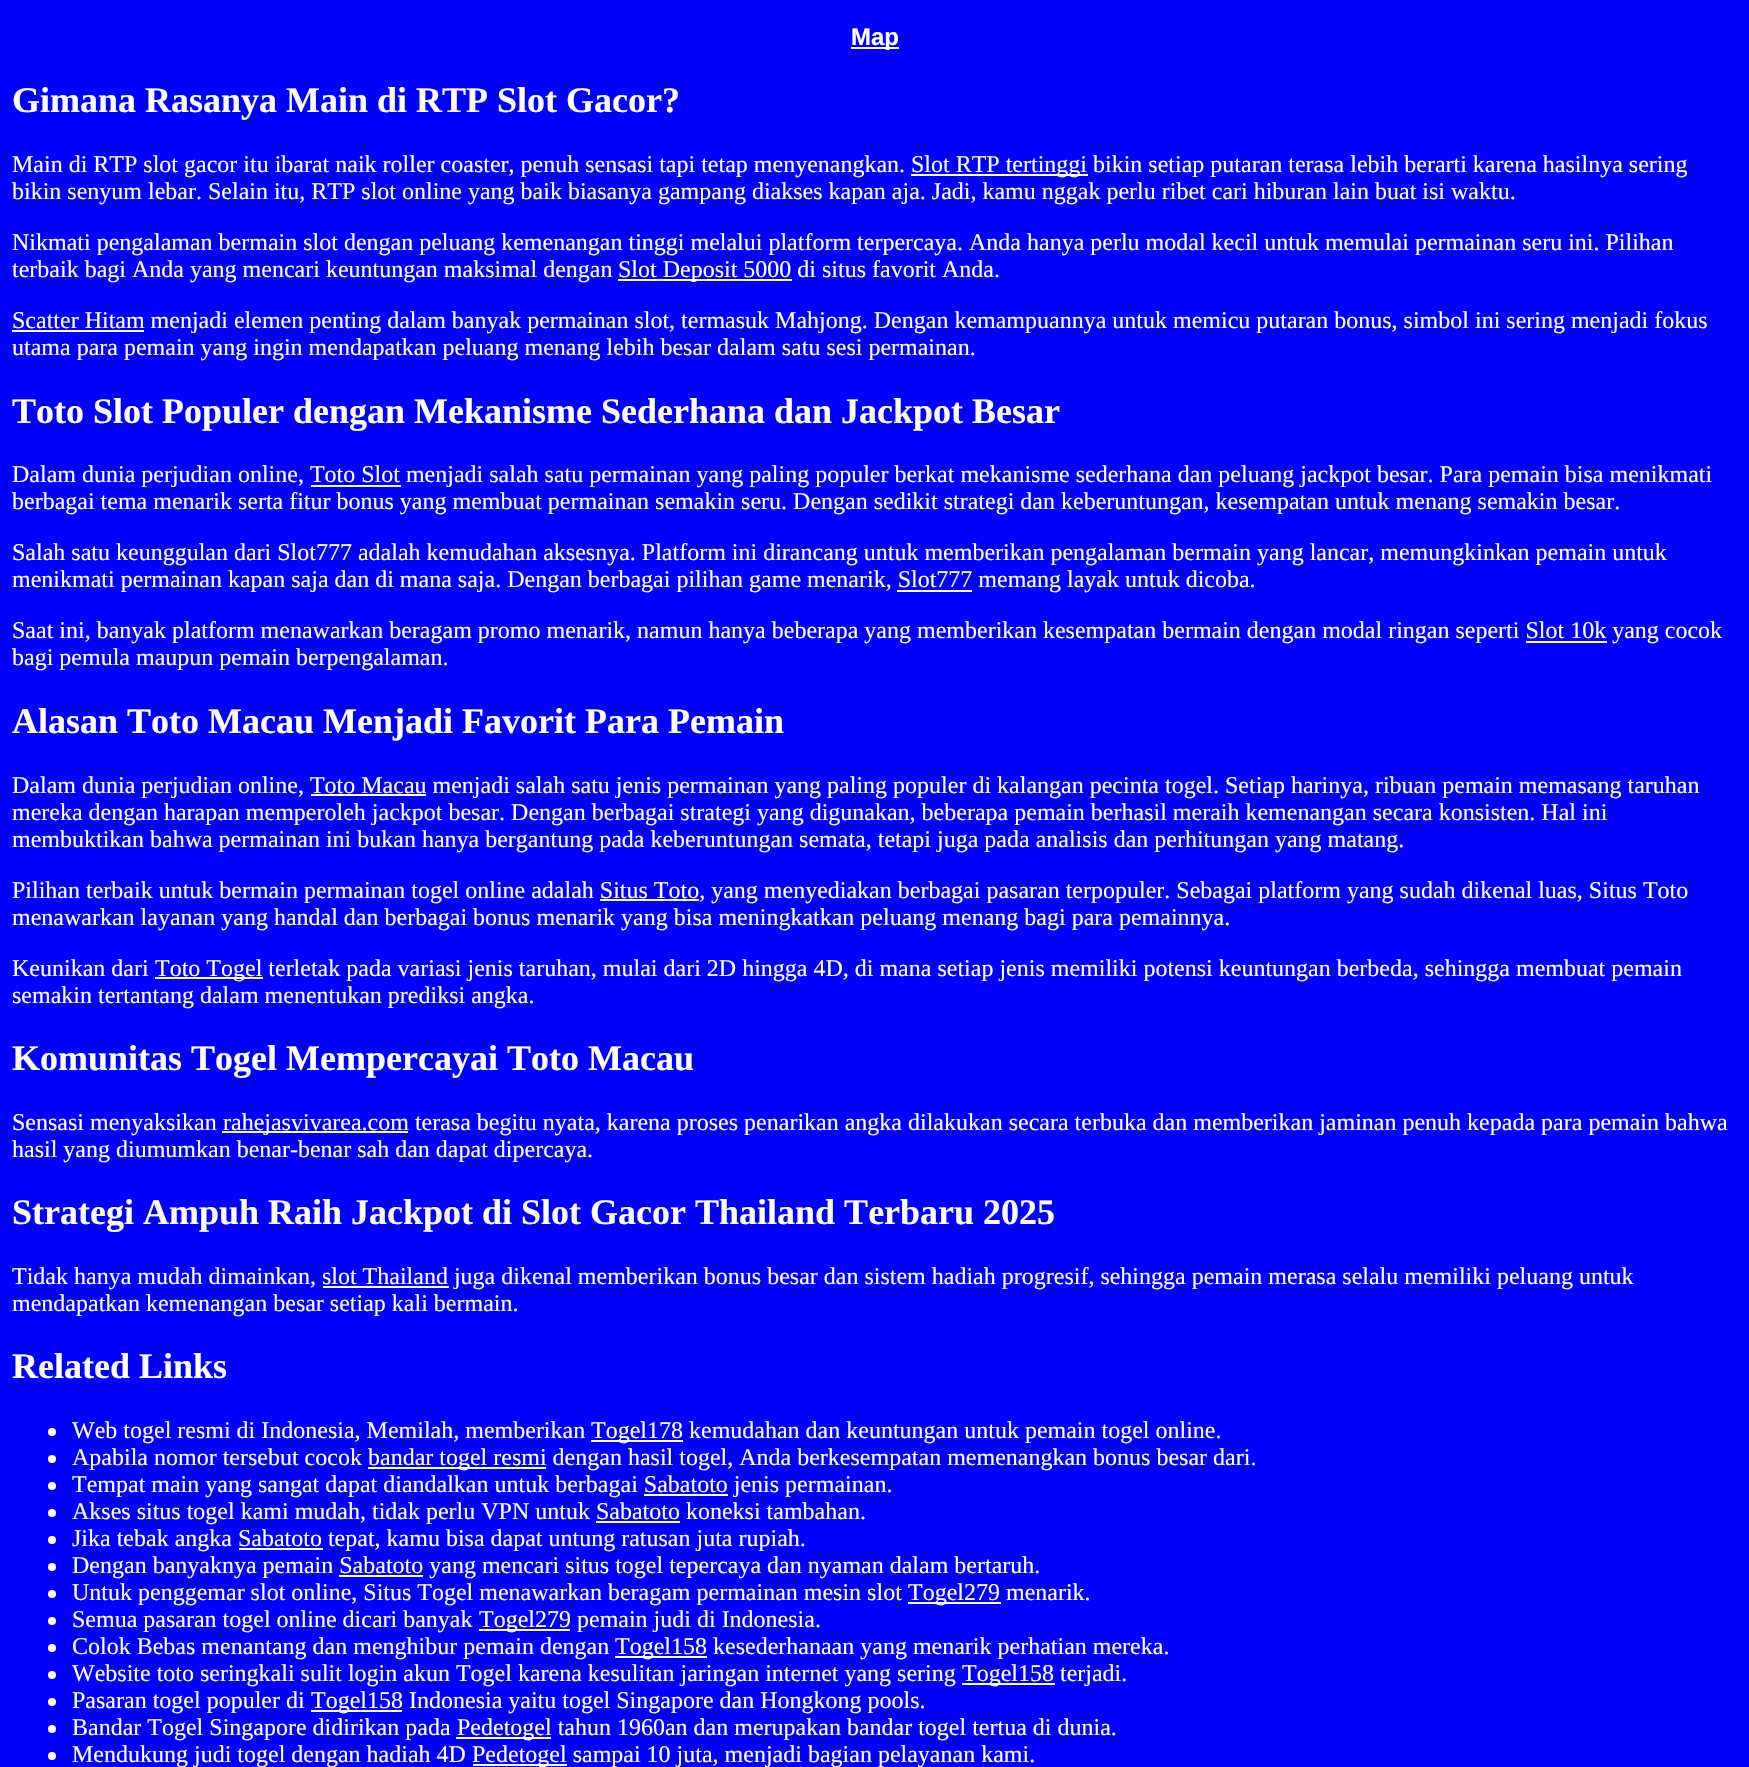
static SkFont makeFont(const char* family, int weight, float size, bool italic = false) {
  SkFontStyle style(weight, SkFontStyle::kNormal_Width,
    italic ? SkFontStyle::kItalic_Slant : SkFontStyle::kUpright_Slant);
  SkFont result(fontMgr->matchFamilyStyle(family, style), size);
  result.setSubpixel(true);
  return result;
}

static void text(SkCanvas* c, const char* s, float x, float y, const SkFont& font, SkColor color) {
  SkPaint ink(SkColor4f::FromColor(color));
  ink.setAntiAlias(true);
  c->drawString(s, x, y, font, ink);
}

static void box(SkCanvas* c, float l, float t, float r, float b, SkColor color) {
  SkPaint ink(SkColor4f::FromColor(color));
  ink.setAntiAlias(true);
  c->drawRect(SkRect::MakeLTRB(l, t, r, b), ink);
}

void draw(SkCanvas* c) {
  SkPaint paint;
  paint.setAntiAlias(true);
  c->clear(0xff0000ff);
  box(c, 851, 47, 899, 49, 0xffffffff);
  SkFont face1 = makeFont("Liberation Sans", 700, 24);
  text(c, "Map", 851, 45, face1, 0xffffffff);
  SkFont face2 = makeFont("Liberation Serif", 700, 36);
  text(c, "Gimana Rasanya Main di RTP Slot Gacor?", 12, 112, face2, 0xffffffff);
  SkFont face3 = makeFont("Liberation Serif", 400, 24);
  text(c, "Main di RTP slot gacor itu ibarat naik roller coaster, penuh sensasi tapi tetap menyenangkan.", 12, 172, face3, 0xffffffff);
  box(c, 911, 174, 1088, 176, 0xffffffff);
  text(c, "Slot RTP tertinggi bikin setiap putaran terasa lebih berarti karena hasilnya sering", 911, 172, face3, 0xffffffff);
  text(c, "bikin senyum lebar. Selain itu, RTP slot online yang baik biasanya gampang diakses kapan aja. Jadi, kamu nggak perlu ribet cari hiburan lain buat isi waktu.", 12, 199, face3, 0xffffffff);
  text(c, "Nikmati pengalaman bermain slot dengan peluang kemenangan tinggi melalui platform terpercaya. Anda hanya perlu modal kecil untuk memulai permainan seru ini. Pilihan", 12, 250, face3, 0xffffffff);
  text(c, "terbaik bagi Anda yang mencari keuntungan maksimal dengan", 12, 277, face3, 0xffffffff);
  box(c, 618, 279, 792, 281, 0xffffffff);
  text(c, "Slot Deposit 5000 di situs favorit Anda.", 618, 277, face3, 0xffffffff);
  box(c, 12, 330, 144, 332, 0xffffffff);
  text(c, "Scatter Hitam menjadi elemen penting dalam banyak permainan slot, termasuk Mahjong. Dengan kemampuannya untuk memicu putaran bonus, simbol ini sering menjadi fokus", 12, 328, face3, 0xffffffff);
  text(c, "utama para pemain yang ingin mendapatkan peluang menang lebih besar dalam satu sesi permainan.", 12, 355, face3, 0xffffffff);
  text(c, "Toto Slot Populer dengan Mekanisme Sederhana dan Jackpot Besar", 12, 423, face2, 0xffffffff);
  text(c, "Dalam dunia perjudian online, Toto Slot menjadi salah satu permainan yang paling populer berkat mekanisme sederhana dan peluang jackpot besar. Para pemain bisa menikmati", 12, 482, face3, 0xffffffff);
  box(c, 311, 485, 401, 487, 0xffffffff);
  text(c, "berbagai tema menarik serta fitur bonus yang membuat permainan semakin seru. Dengan sedikit strategi dan keberuntungan, kesempatan untuk menang semakin besar.", 12, 509, face3, 0xffffffff);
  text(c, "Salah satu keunggulan dari Slot777 adalah kemudahan aksesnya. Platform ini dirancang untuk memberikan pengalaman bermain yang lancar, memungkinkan pemain untuk", 12, 560, face3, 0xffffffff);
  text(c, "menikmati permainan kapan saja dan di mana saja. Dengan berbagai pilihan game menarik, Slot777 memang layak untuk dicoba.", 12, 587, face3, 0xffffffff);
  box(c, 897, 590, 972, 592, 0xffffffff);
  text(c, "Saat ini, banyak platform menawarkan beragam promo menarik, namun hanya beberapa yang memberikan kesempatan bermain dengan modal ringan seperti Slot 10k yang cocok", 12, 638, face3, 0xffffffff);
  box(c, 1526, 641, 1607, 643, 0xffffffff);
  text(c, "bagi pemula maupun pemain berpengalaman.", 12, 665, face3, 0xffffffff);
  text(c, "Alasan Toto Macau Menjadi Favorit Para Pemain", 12, 733, face2, 0xffffffff);
  text(c, "Dalam dunia perjudian online, Toto Macau menjadi salah satu jenis permainan yang paling populer di kalangan pecinta togel. Setiap harinya, ribuan pemain memasang taruhan", 12, 793, face3, 0xffffffff);
  box(c, 311, 794, 426, 796, 0xffffffff);
  text(c, "mereka dengan harapan memperoleh jackpot besar. Dengan berbagai strategi yang digunakan, beberapa pemain berhasil meraih kemenangan secara konsisten. Hal ini", 12, 820, face3, 0xffffffff);
  text(c, "membuktikan bahwa permainan ini bukan hanya bergantung pada keberuntungan semata, tetapi juga pada analisis dan perhitungan yang matang.", 12, 847, face3, 0xffffffff);
  text(c, "Pilihan terbaik untuk bermain permainan togel online adalah Situs Toto, yang menyediakan berbagai pasaran terpopuler. Sebagai platform yang sudah dikenal luas, Situs Toto", 12, 898, face3, 0xffffffff);
  box(c, 600, 899, 699, 901, 0xffffffff);
  text(c, "menawarkan layanan yang handal dan berbagai bonus menarik yang bisa meningkatkan peluang menang bagi para pemainnya.", 12, 925, face3, 0xffffffff);
  text(c, "Keunikan dari", 12, 976, face3, 0xffffffff);
  box(c, 155, 977, 263, 979, 0xffffffff);
  text(c, "Toto Togel terletak pada variasi jenis taruhan, mulai dari 2D hingga 4D, di mana setiap jenis memiliki potensi keuntungan berbeda, sehingga membuat pemain", 155, 976, face3, 0xffffffff);
  text(c, "semakin tertantang dalam menentukan prediksi angka.", 12, 1003, face3, 0xffffffff);
  text(c, "Komunitas Togel Mempercayai Toto Macau", 12, 1070, face2, 0xffffffff);
  text(c, "Sensasi menyaksikan", 12, 1130, face3, 0xffffffff);
  box(c, 222, 1131, 408, 1133, 0xffffffff);
  text(c, "rahejasvivarea.com terasa begitu nyata, karena proses penarikan angka dilakukan secara terbuka dan memberikan jaminan penuh kepada para pemain bahwa", 223, 1130, face3, 0xffffffff);
  text(c, "hasil yang diumumkan benar-benar sah dan dapat dipercaya.", 12, 1157, face3, 0xffffffff);
  text(c, "Strategi Ampuh Raih Jackpot di Slot Gacor Thailand Terbaru 2025", 12, 1224, face2, 0xffffffff);
  text(c, "Tidak hanya mudah dimainkan, slot Thailand juga dikenal memberikan bonus besar dan sistem hadiah progresif, sehingga pemain merasa selalu memiliki peluang untuk", 12, 1284, face3, 0xffffffff);
  box(c, 323, 1286, 449, 1288, 0xffffffff);
  text(c, "mendapatkan kemenangan besar setiap kali bermain.", 12, 1311, face3, 0xffffffff);
  text(c, "Related Links", 12, 1378, face2, 0xffffffff);
  paint.setColor(0xffffffff);
  c->drawCircle(52, 1432, 4, paint);
  text(c, "Web togel resmi di Indonesia, Memilah, memberikan", 72, 1438, face3, 0xffffffff);
  box(c, 591, 1440, 683, 1442, 0xffffffff);
  text(c, "Togel178 kemudahan dan keuntungan untuk pemain togel online.", 591, 1438, face3, 0xffffffff);
  c->drawCircle(52, 1459, 4, paint);
  text(c, "Apabila nomor tersebut cocok", 72, 1465, face3, 0xffffffff);
  box(c, 368, 1467, 546, 1469, 0xffffffff);
  text(c, "bandar togel resmi dengan hasil togel, Anda berkesempatan memenangkan bonus besar dari.", 368, 1465, face3, 0xffffffff);
  c->drawCircle(52, 1486, 4, paint);
  text(c, "Tempat main yang sangat dapat diandalkan untuk berbagai Sabatoto jenis permainan.", 72, 1492, face3, 0xffffffff);
  box(c, 644, 1494, 728, 1496, 0xffffffff);
  c->drawCircle(52, 1513, 4, paint);
  text(c, "Akses situs togel kami mudah, tidak perlu VPN untuk Sabatoto koneksi tambahan.", 72, 1519, face3, 0xffffffff);
  box(c, 596, 1521, 680, 1523, 0xffffffff);
  c->drawCircle(52, 1540, 4, paint);
  text(c, "Jika tebak angka Sabatoto tepat, kamu bisa dapat untung ratusan juta rupiah.", 72, 1546, face3, 0xffffffff);
  box(c, 239, 1548, 323, 1550, 0xffffffff);
  c->drawCircle(52, 1567, 4, paint);
  text(c, "Dengan banyaknya pemain Sabatoto yang mencari situs togel tepercaya dan nyaman dalam bertaruh.", 72, 1573, face3, 0xffffffff);
  box(c, 339, 1575, 423, 1577, 0xffffffff);
  c->drawCircle(52, 1594, 4, paint);
  text(c, "Untuk penggemar slot online, Situs Togel menawarkan beragam permainan mesin slot", 72, 1600, face3, 0xffffffff);
  box(c, 908, 1602, 1001, 1604, 0xffffffff);
  text(c, "Togel279 menarik.", 908, 1600, face3, 0xffffffff);
  c->drawCircle(52, 1621, 4, paint);
  text(c, "Semua pasaran togel online dicari banyak", 72, 1627, face3, 0xffffffff);
  box(c, 479, 1629, 570, 1631, 0xffffffff);
  text(c, "Togel279 pemain judi di Indonesia.", 479, 1627, face3, 0xffffffff);
  c->drawCircle(52, 1648, 4, paint);
  text(c, "Colok Bebas menantang dan menghibur pemain dengan", 72, 1654, face3, 0xffffffff);
  box(c, 615, 1656, 707, 1658, 0xffffffff);
  text(c, "Togel158 kesederhanaan yang menarik perhatian mereka.", 615, 1654, face3, 0xffffffff);
  c->drawCircle(52, 1675, 4, paint);
  text(c, "Website toto seringkali sulit login akun Togel karena kesulitan jaringan internet yang sering", 72, 1681, face3, 0xffffffff);
  box(c, 962, 1683, 1055, 1685, 0xffffffff);
  text(c, "Togel158 terjadi.", 962, 1681, face3, 0xffffffff);
  c->drawCircle(52, 1702, 4, paint);
  text(c, "Pasaran togel populer di", 72, 1708, face3, 0xffffffff);
  box(c, 311, 1710, 402, 1712, 0xffffffff);
  text(c, "Togel158 Indonesia yaitu togel Singapore dan Hongkong pools.", 311, 1708, face3, 0xffffffff);
  c->drawCircle(52, 1729, 4, paint);
  text(c, "Bandar Togel Singapore didirikan pada", 72, 1735, face3, 0xffffffff);
  box(c, 456, 1737, 551, 1739, 0xffffffff);
  text(c, "Pedetogel tahun 1960an dan merupakan bandar togel tertua di dunia.", 457, 1735, face3, 0xffffffff);
  c->drawCircle(52, 1756, 4, paint);
  text(c, "Mendukung judi togel dengan hadiah 4D", 72, 1762, face3, 0xffffffff);
  box(c, 473, 1764, 567, 1766, 0xffffffff);
  text(c, "Pedetogel sampai 10 juta, menjadi bagian pelayanan kami.", 472, 1762, face3, 0xffffffff);
}
